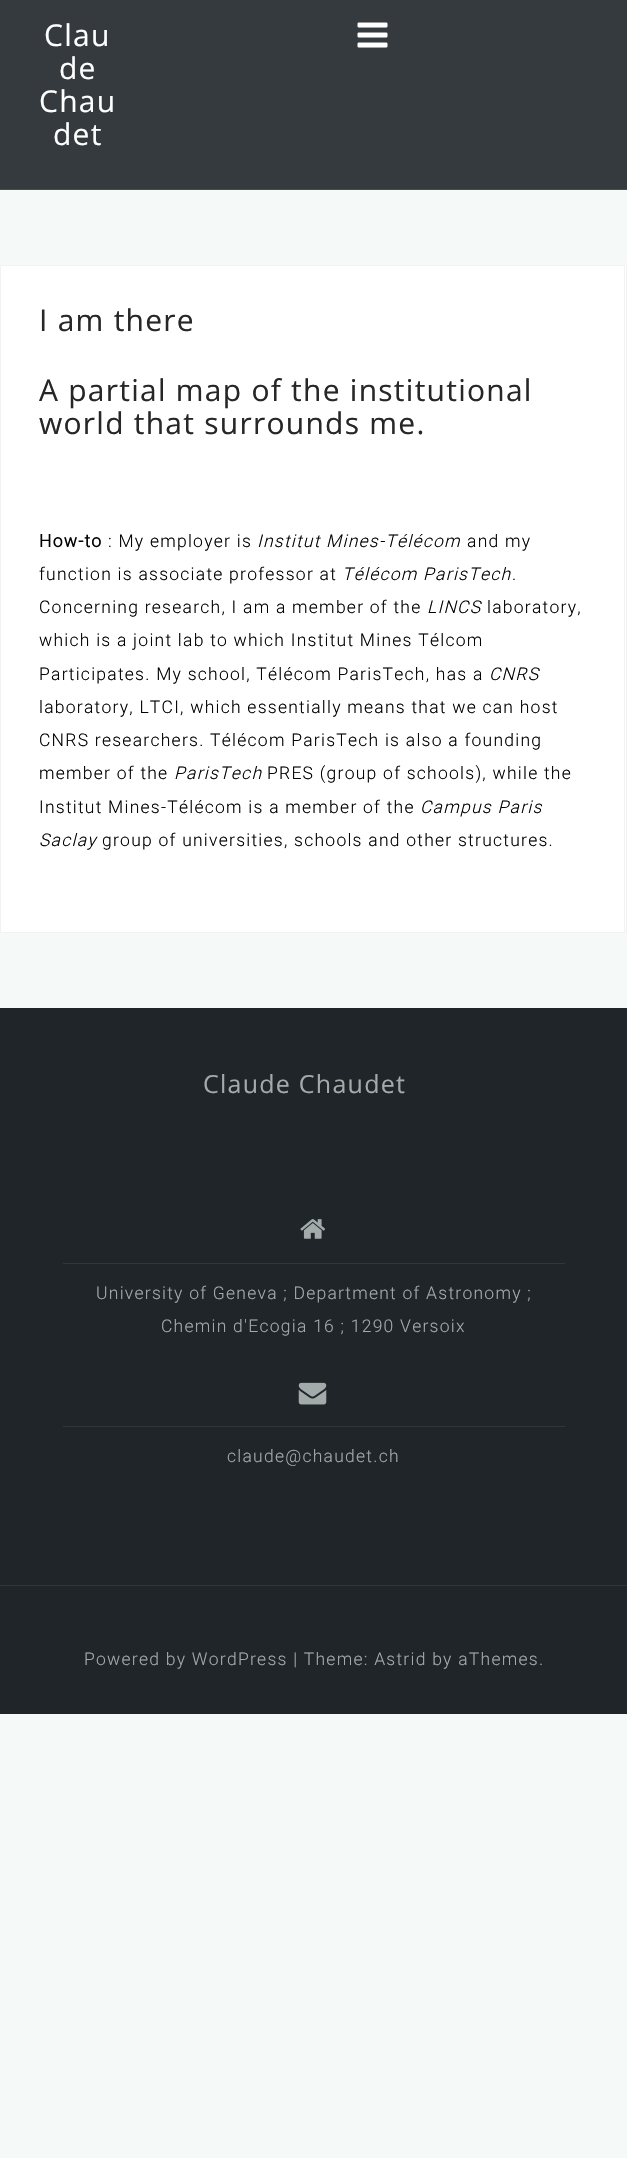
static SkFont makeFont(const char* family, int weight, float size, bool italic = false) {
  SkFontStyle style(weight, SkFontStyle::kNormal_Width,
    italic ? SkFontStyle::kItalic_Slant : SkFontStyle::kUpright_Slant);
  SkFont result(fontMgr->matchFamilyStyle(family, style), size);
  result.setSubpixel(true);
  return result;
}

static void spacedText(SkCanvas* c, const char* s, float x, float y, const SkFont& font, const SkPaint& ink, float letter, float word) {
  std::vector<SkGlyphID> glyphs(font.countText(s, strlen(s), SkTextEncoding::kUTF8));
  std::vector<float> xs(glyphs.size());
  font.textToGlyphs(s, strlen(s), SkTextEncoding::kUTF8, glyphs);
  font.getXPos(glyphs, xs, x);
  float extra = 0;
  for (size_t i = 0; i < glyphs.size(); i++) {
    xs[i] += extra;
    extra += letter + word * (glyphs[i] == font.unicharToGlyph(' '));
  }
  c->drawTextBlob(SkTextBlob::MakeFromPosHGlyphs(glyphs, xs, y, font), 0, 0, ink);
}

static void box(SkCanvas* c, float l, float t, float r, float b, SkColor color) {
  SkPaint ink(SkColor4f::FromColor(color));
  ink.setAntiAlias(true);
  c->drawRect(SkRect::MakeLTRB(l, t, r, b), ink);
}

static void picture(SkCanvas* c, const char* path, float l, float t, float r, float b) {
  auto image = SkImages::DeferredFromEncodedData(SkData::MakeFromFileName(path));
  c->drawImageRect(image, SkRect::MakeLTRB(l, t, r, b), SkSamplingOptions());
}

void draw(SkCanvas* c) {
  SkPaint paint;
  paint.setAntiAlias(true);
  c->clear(0xfff5f9f8);
  box(c, 0, 0, 627, 189, 0xff353a3e);
  box(c, 0, 189, 627, 190, 0xff494e51);
  SkFont face1 = makeFont("Open Sans", 400, 30);
  paint.setColor(0xffffffff);
  spacedText(c, "Clau", 44, 46, face1, paint, 1.25f, 0);
  spacedText(c, "de", 59, 79, face1, paint, 1.25f, 0);
  spacedText(c, "Chau", 39, 112, face1, paint, 1.25f, 0);
  spacedText(c, "det", 53, 145, face1, paint, 1.25f, 0);
  picture(c, "img_01.png", 357, 22, 388, 48);
  box(c, 625, 265, 626, 933, 0xffffffff);
  box(c, 626, 265, 627, 933, 0xfff2f2f3);
  box(c, 625, 931, 627, 932, 0xfff2f2f3);
  c->drawRect(SkRect::MakeLTRB(0.5f, 265.5f, 624.5f, 932.5f), paint);
  paint.setStyle(SkPaint::kStroke_Style);
  paint.setStrokeWidth(1);
  paint.setColor(0xfff2f2f3);
  c->drawRect(SkRect::MakeLTRB(0.5f, 265.5f, 624.5f, 932.5f), paint);
  paint.setStyle(SkPaint::kFill_Style);
  paint.setColor(0xff272727);
  spacedText(c, "I am there", 39, 331, face1, paint, 1.25f, 0);
  spacedText(c, "A partial map of the institutional", 39, 401, face1, paint, 1.25f, 0);
  spacedText(c, "world that surrounds me.", 39, 434, face1, paint, 1.25f, 0);
  SkFont face2 = makeFont("Roboto", 700, 17.5f);
  paint.setColor(0xff020202);
  spacedText(c, "How-to", 39, 547, face2, paint, 1.25f, 0);
  SkFont face3 = makeFont("Roboto", 300, 17.5f);
  spacedText(c, ": My employer is", 108, 547, face3, paint, 1.25f, 0);
  SkFont face4 = makeFont("Roboto", 300, 17.5f, true);
  spacedText(c, "Institut Mines-Télécom", 257, 547, face4, paint, 1.25f, 0);
  spacedText(c, "and my", 467, 547, face3, paint, 1.25f, 0);
  spacedText(c, "function is associate professor at", 39, 580, face3, paint, 1.25f, 0);
  spacedText(c, "Télécom ParisTech", 342, 580, face4, paint, 1.25f, 0);
  spacedText(c, ".", 512, 580, face3, paint, 1.25f, 0);
  spacedText(c, "Concerning research, I am a member of the", 39, 613, face3, paint, 1.25f, 0);
  spacedText(c, "LINCS", 427, 613, face4, paint, 1.25f, 0);
  spacedText(c, "laboratory,", 487, 613, face3, paint, 1.25f, 0);
  spacedText(c, "which is a joint lab to which Institut Mines Télcom", 39, 646, face3, paint, 1.25f, 0);
  spacedText(c, "Participates. My school, Télécom ParisTech, has a", 39, 680, face3, paint, 1.25f, 0);
  spacedText(c, "CNRS", 489, 680, face4, paint, 1.25f, 0);
  spacedText(c, "laboratory, LTCI, which essentially means that we can host", 39, 713, face3, paint, 1.25f, 0);
  spacedText(c, "CNRS researchers. Télécom ParisTech is also a founding", 39, 746, face3, paint, 1.25f, 0);
  spacedText(c, "member of the", 39, 779, face3, paint, 1.25f, 0);
  spacedText(c, "ParisTech", 174, 779, face4, paint, 1.25f, 0);
  spacedText(c, "PRES (group of schools), while the", 267, 779, face3, paint, 1.25f, 0);
  spacedText(c, "Institut Mines-Télécom is a member of the", 39, 813, face3, paint, 1.25f, 0);
  spacedText(c, "Campus Paris", 420, 813, face4, paint, 1.25f, 0);
  spacedText(c, "Saclay", 39, 846, face4, paint, 1.25f, 0);
  spacedText(c, "group of universities, schools and other structures.", 102, 846, face3, paint, 1.25f, 0);
  box(c, 0, 1008, 627, 1585, 0xff202529);
  box(c, 0, 1585, 627, 1586, 0xff32363a);
  SkFont face5 = makeFont("Open Sans", 400, 25);
  paint.setColor(0xffa3aaaa);
  spacedText(c, "Claude Chaudet", 203, 1093, face5, paint, 1.25f, 0);
  picture(c, "img_02.png", 300, 1219, 325, 1239);
  box(c, 63, 1263, 565, 1264, 0xff32363a);
  spacedText(c, "University of Geneva ; Department of Astronomy ;", 96, 1299, face3, paint, 1.25f, 0);
  spacedText(c, "Chemin d'Ecogia 16 ; 1290 Versoix", 161, 1332, face3, paint, 1.25f, 0);
  picture(c, "img_03.png", 298, 1382, 327, 1405);
  box(c, 63, 1426, 565, 1427, 0xff32363a);
  spacedText(c, "claude@chaudet.ch", 227, 1462, face3, paint, 1.25f, 0);
  box(c, 0, 1586, 627, 1714, 0xff202529);
  spacedText(c, "Powered by WordPress | Theme: Astrid by aThemes.", 84, 1665, face3, paint, 1.25f, 0);
}
